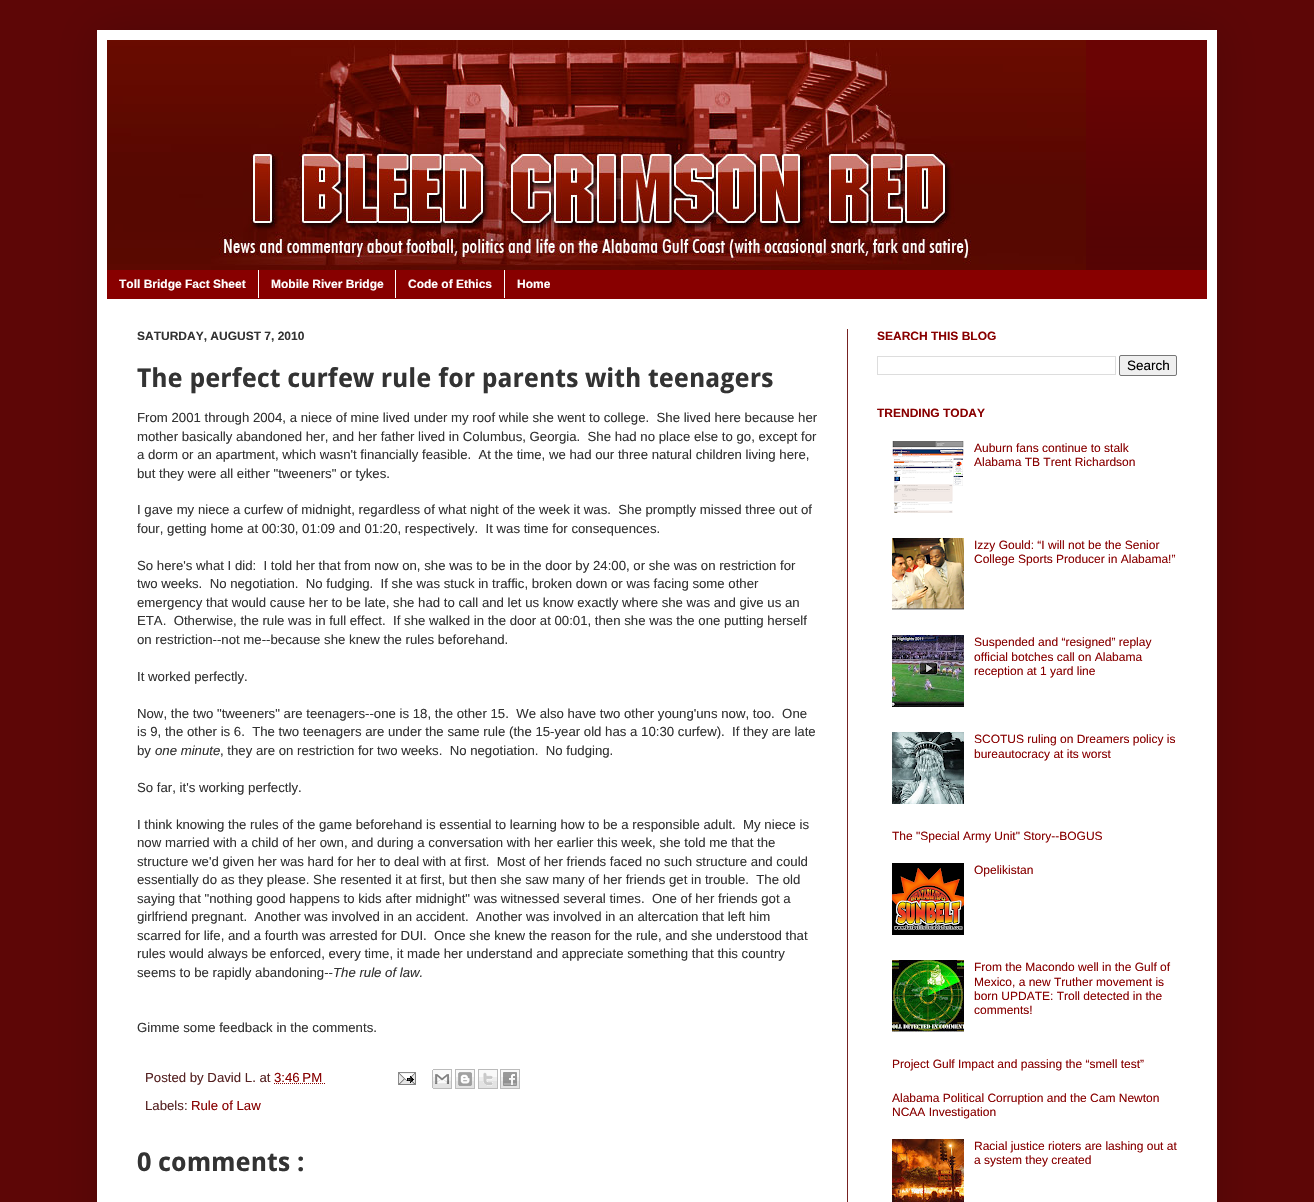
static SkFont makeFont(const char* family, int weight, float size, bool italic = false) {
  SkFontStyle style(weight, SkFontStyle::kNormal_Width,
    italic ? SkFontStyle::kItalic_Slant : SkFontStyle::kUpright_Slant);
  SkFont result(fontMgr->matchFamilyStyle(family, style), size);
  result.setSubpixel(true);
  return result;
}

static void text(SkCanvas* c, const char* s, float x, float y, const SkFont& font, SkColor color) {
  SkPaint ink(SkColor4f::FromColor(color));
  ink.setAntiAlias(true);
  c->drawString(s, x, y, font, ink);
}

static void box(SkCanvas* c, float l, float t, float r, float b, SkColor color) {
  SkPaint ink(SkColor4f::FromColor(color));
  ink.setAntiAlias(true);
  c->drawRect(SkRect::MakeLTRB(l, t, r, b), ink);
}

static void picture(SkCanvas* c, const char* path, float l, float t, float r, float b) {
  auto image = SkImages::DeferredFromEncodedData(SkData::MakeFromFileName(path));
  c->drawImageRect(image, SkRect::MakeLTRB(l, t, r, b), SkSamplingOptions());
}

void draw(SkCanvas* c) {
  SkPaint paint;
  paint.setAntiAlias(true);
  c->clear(0xff5d0606);
  paint.setColor(0x26000000);
  paint.setMaskFilter(SkMaskFilter::MakeBlur(kNormal_SkBlurStyle, 20));
  c->drawRect(SkRect::MakeLTRB(97, 30, 1217, 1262), paint);
  paint.setMaskFilter(nullptr);
  box(c, 97, 30, 1217, 1202, 0xffffffff);
  box(c, 1086, 40, 1207, 270, 0xff6a0404);
  picture(c, "img_01.png", 1086, 90, 1207, 270);
  picture(c, "img_02.png", 107, 40, 1086, 270);
  box(c, 107, 270, 1207, 299, 0xff880000);
  SkFont face1 = makeFont("Liberation Sans", 700, 12);
  text(c, "Toll Bridge Fact Sheet", 119, 288, face1, 0xffffffff);
  box(c, 258, 270, 259, 298, 0xffffffff);
  text(c, "Mobile River Bridge", 271, 288, face1, 0xffffffff);
  box(c, 395, 270, 396, 298, 0xffffffff);
  text(c, "Code of Ethics", 408, 288, face1, 0xffffffff);
  box(c, 504, 270, 505, 298, 0xffffffff);
  text(c, "Home", 517, 288, face1, 0xffffffff);
  box(c, 847, 329, 848, 1202, 0xff772222);
  text(c, "SATURDAY, AUGUST 7, 2010", 137, 340, face1, 0xff333333);
  SkFont face2 = makeFont("Droid Sans", 700, 26);
  text(c, "The perfect curfew rule for parents with teenagers", 137, 387, face2, 0xff333333);
  SkFont face3 = makeFont("Liberation Sans", 400, 13.2f);
  text(c, "From 2001 through 2004, a niece of mine lived under my roof while she went to college.  She lived here because her", 137, 422, face3, 0xff333333);
  text(c, "mother basically abandoned her, and her father lived in Columbus, Georgia.  She had no place else to go, except for", 137, 441, face3, 0xff333333);
  text(c, "a dorm or an apartment, which wasn't financially feasible.  At the time, we had our three natural children living here,", 137, 459, face3, 0xff333333);
  text(c, "but they were all either \"tweeners\" or tykes.", 137, 478, face3, 0xff333333);
  text(c, "I gave my niece a curfew of midnight, regardless of what night of the week it was.  She promptly missed three out of", 137, 514, face3, 0xff333333);
  text(c, "four, getting home at 00:30, 01:09 and 01:20, respectively.  It was time for consequences.", 137, 533, face3, 0xff333333);
  text(c, "So here's what I did:  I told her that from now on, she was to be in the door by 24:00, or she was on restriction for", 137, 570, face3, 0xff333333);
  text(c, "two weeks.  No negotiation.  No fudging.  If she was stuck in traffic, broken down or was facing some other", 137, 588, face3, 0xff333333);
  text(c, "emergency that would cause her to be late, she had to call and let us know exactly where she was and give us an", 137, 607, face3, 0xff333333);
  text(c, "ETA.  Otherwise, the rule was in full effect.  If she walked in the door at 00:01, then she was the one putting herself", 137, 625, face3, 0xff333333);
  text(c, "on restriction--not me--because she knew the rules beforehand.", 137, 644, face3, 0xff333333);
  text(c, "It worked perfectly.", 137, 681, face3, 0xff333333);
  text(c, "Now, the two \"tweeners\" are teenagers--one is 18, the other 15.  We also have two other young'uns now, too.  One", 137, 718, face3, 0xff333333);
  text(c, "is 9, the other is 6.  The two teenagers are under the same rule (the 15-year old has a 10:30 curfew).  If they are late", 137, 736, face3, 0xff333333);
  text(c, "by", 137, 755, face3, 0xff333333);
  SkFont face4 = makeFont("Liberation Sans", 400, 13.2f, true);
  text(c, "one minute", 155, 755, face4, 0xff333333);
  text(c, ", they are on restriction for two weeks.  No negotiation.  No fudging.", 220, 755, face3, 0xff333333);
  text(c, "So far, it's working perfectly.", 137, 792, face3, 0xff333333);
  text(c, "I think knowing the rules of the game beforehand is essential to learning how to be a responsible adult.  My niece is", 137, 829, face3, 0xff333333);
  text(c, "now married with a child of her own, and during a conversation with her earlier this week, she told me that the", 137, 847, face3, 0xff333333);
  text(c, "structure we'd given her was hard for her to deal with at first.  Most of her friends faced no such structure and could", 137, 866, face3, 0xff333333);
  text(c, "essentially do as they please. She resented it at first, but then she saw many of her friends get in trouble.  The old", 137, 884, face3, 0xff333333);
  text(c, "saying that \"nothing good happens to kids after midnight\" was witnessed several times.  One of her friends got a", 137, 903, face3, 0xff333333);
  text(c, "girlfriend pregnant.  Another was involved in an accident.  Another was involved in an altercation that left him", 137, 921, face3, 0xff333333);
  text(c, "scarred for life, and a fourth was arrested for DUI.  Once she knew the reason for the rule, and she understood that", 137, 940, face3, 0xff333333);
  text(c, "rules would always be enforced, every time, it made her understand and appreciate something that this country", 137, 958, face3, 0xff333333);
  text(c, "seems to be rapidly abandoning--", 137, 977, face3, 0xff333333);
  text(c, "The rule of law.", 333, 977, face4, 0xff333333);
  text(c, "Gimme some feedback in the comments.", 137, 1032, face3, 0xff333333);
  text(c, "Posted by David L. at", 145, 1082, face3, 0xff552222);
  text(c, "3:46 PM", 274, 1082, face3, 0xff880000);
  paint.setStyle(SkPaint::kStroke_Style);
  paint.setStrokeWidth(1);
  paint.setColor(0xff880000);
  paint.setPathEffect(SkDashPathEffect::Make({{1, 1}}, 0));
  c->drawPath(SkPathBuilder().moveTo(274, 1083.5f).lineTo(326, 1083.5f).detach(), paint);
  paint.setPathEffect(nullptr);
  picture(c, "img_03.png", 398, 1072, 416, 1085);
  picture(c, "img_04.png", 432, 1069, 452, 1089);
  picture(c, "img_05.png", 455, 1069, 475, 1089);
  picture(c, "img_06.png", 478, 1069, 498, 1089);
  picture(c, "img_07.png", 500, 1069, 520, 1089);
  text(c, "Labels:", 145, 1110, face3, 0xff552222);
  text(c, "Rule of Law", 191, 1110, face3, 0xff880000);
  text(c, "0 comments :", 137, 1171, face2, 0xff333333);
  text(c, "SEARCH THIS BLOG", 877, 340, face1, 0xff880000);
  paint.setColor(0xffdddddd);
  c->drawRect(SkRect::MakeLTRB(877.5f, 356.5f, 1115.5f, 374.5f), paint);
  paint.setStyle(SkPaint::kFill_Style);
  paint.setColor(0xffefefef);
  c->drawRoundRect(SkRect::MakeLTRB(1119.5f, 355.5f, 1176.5f, 375.5f), 1.5f, 1.5f, paint);
  paint.setStyle(SkPaint::kStroke_Style);
  paint.setColor(0xff767676);
  c->drawRoundRect(SkRect::MakeLTRB(1119.5f, 355.5f, 1176.5f, 375.5f), 1.5f, 1.5f, paint);
  SkFont face5 = makeFont("Liberation Sans", 400, 13.5f);
  text(c, "Search", 1127, 370, face5, 0xff000000);
  text(c, "TRENDING TODAY", 877, 417, face1, 0xff880000);
  picture(c, "img_08.png", 892, 441, 964, 513);
  SkFont face6 = makeFont("Liberation Sans", 400, 12);
  text(c, "Auburn fans continue to stalk", 974, 452, face6, 0xff880000);
  text(c, "Alabama TB Trent Richardson", 974, 466, face6, 0xff880000);
  picture(c, "img_09.png", 892, 538, 964, 610);
  text(c, "Izzy Gould: “I will not be the Senior", 974, 549, face6, 0xff880000);
  text(c, "College Sports Producer in Alabama!”", 974, 563, face6, 0xff880000);
  picture(c, "img_10.png", 892, 635, 964, 707);
  text(c, "Suspended and “resigned” replay", 974, 646, face6, 0xff880000);
  text(c, "official botches call on Alabama", 974, 661, face6, 0xff880000);
  text(c, "reception at 1 yard line", 974, 675, face6, 0xff880000);
  picture(c, "img_11.png", 892, 732, 964, 804);
  text(c, "SCOTUS ruling on Dreamers policy is", 974, 743, face6, 0xff880000);
  text(c, "bureautocracy at its worst", 974, 758, face6, 0xff880000);
  text(c, "The \"Special Army Unit\" Story--BOGUS", 892, 840, face6, 0xff880000);
  picture(c, "img_12.png", 892, 863, 964, 935);
  text(c, "Opelikistan", 974, 874, face6, 0xff880000);
  picture(c, "img_13.png", 892, 960, 964, 1032);
  text(c, "From the Macondo well in the Gulf of", 974, 971, face6, 0xff880000);
  text(c, "Mexico, a new Truther movement is", 974, 986, face6, 0xff880000);
  text(c, "born UPDATE: Troll detected in the", 974, 1000, face6, 0xff880000);
  text(c, "comments!", 974, 1014, face6, 0xff880000);
  text(c, "Project Gulf Impact and passing the “smell test”", 892, 1068, face6, 0xff880000);
  text(c, "Alabama Political Corruption and the Cam Newton", 892, 1102, face6, 0xff880000);
  text(c, "NCAA Investigation", 892, 1116, face6, 0xff880000);
  picture(c, "img_14.png", 892, 1139, 964, 1202);
  text(c, "Racial justice rioters are lashing out at", 974, 1150, face6, 0xff880000);
  text(c, "a system they created", 974, 1164, face6, 0xff880000);
}
